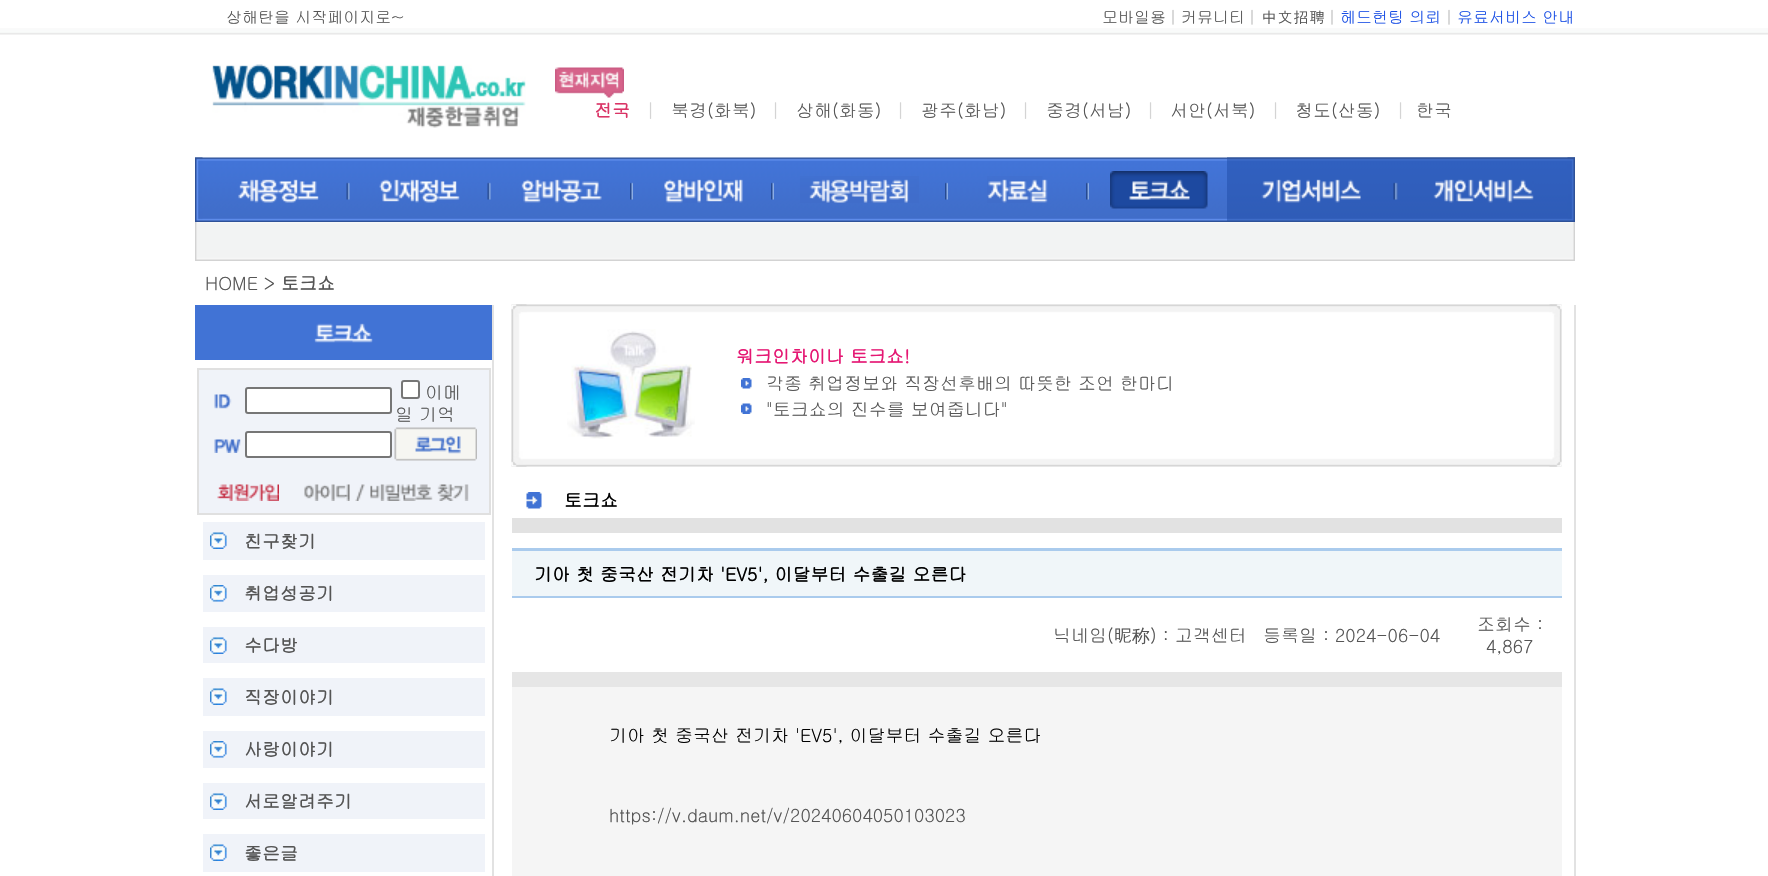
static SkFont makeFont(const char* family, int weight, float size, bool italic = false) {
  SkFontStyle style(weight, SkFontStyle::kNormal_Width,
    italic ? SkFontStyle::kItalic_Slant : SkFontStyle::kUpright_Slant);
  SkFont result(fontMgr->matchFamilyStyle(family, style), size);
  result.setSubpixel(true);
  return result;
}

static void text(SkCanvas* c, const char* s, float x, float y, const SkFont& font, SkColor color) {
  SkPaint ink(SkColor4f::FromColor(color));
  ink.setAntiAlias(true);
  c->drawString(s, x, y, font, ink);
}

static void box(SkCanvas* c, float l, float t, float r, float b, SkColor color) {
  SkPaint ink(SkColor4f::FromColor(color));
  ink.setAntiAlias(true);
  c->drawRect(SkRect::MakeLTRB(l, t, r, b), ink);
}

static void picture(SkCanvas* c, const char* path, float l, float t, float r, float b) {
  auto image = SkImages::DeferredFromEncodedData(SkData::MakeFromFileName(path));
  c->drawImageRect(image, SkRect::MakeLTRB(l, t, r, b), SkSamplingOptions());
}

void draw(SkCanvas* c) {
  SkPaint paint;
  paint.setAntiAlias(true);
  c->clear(0xffffffff);
  picture(c, "img_01.png", 0, 28, 1768, 35);
  SkFont face1 = makeFont("Gulim", 400, 16);
  text(c, "상해탄을 시작페이지로~", 226, 23, face1, 0xff555555);
  text(c, "모바일용", 1102, 23, face1, 0xff555555);
  text(c, "|", 1169, 23, face1, 0xffbfbfbf);
  text(c, "커뮤니티", 1181, 23, face1, 0xff555555);
  text(c, "|", 1248, 23, face1, 0xffbfbfbf);
  text(c, "中文招聘", 1261, 23, face1, 0xff555555);
  text(c, "|", 1328, 23, face1, 0xffbfbfbf);
  text(c, "헤드헌팅 의뢰", 1340, 23, face1, 0xff174de5);
  text(c, "|", 1445, 23, face1, 0xffbfbfbf);
  text(c, "유료서비스 안내", 1457, 23, face1, 0xff174de5);
  picture(c, "img_02.png", 212, 64, 526, 128);
  picture(c, "img_03.png", 555, 67, 624, 98);
  SkFont face2 = makeFont("Gulim", 700, 18);
  text(c, "전국", 594, 117, face2, 0xffda3466);
  SkFont face3 = makeFont("Gulim", 400, 18);
  text(c, "|", 646, 117, face3, 0xffd4d4d4);
  text(c, "북경(화북)", 671, 117, face3, 0xff555555);
  text(c, "|", 771, 117, face3, 0xffd4d4d4);
  text(c, "상해(화동)", 796, 117, face3, 0xff555555);
  text(c, "|", 896, 117, face3, 0xffd4d4d4);
  text(c, "광주(화남)", 921, 117, face3, 0xff555555);
  text(c, "|", 1021, 117, face3, 0xffd4d4d4);
  text(c, "중경(서남)", 1046, 117, face3, 0xff555555);
  text(c, "|", 1146, 117, face3, 0xffd4d4d4);
  text(c, "서안(서북)", 1170, 117, face3, 0xff555555);
  text(c, "|", 1271, 117, face3, 0xffd4d4d4);
  text(c, "청도(산동)", 1295, 117, face3, 0xff555555);
  text(c, "|", 1396, 117, face3, 0xffd4d4d4);
  text(c, "한국", 1416, 117, face3, 0xff555555);
  picture(c, "img_04.png", 195, 157, 1575, 222);
  picture(c, "img_05.png", 195, 157, 203, 221);
  picture(c, "img_06.png", 238, 179, 319, 203);
  picture(c, "img_07.png", 346, 182, 350, 200);
  picture(c, "img_08.png", 379, 179, 460, 203);
  picture(c, "img_09.png", 487, 182, 491, 200);
  picture(c, "img_10.png", 521, 179, 602, 203);
  picture(c, "img_11.png", 630, 182, 633, 200);
  picture(c, "img_12.png", 664, 179, 743, 203);
  picture(c, "img_11.png", 771, 182, 774, 200);
  picture(c, "img_13.png", 800, 176, 919, 203);
  picture(c, "img_11.png", 945, 182, 948, 200);
  picture(c, "img_14.png", 987, 176, 1048, 203);
  picture(c, "img_15.png", 1086, 182, 1089, 200);
  picture(c, "img_16.png", 1110, 171, 1208, 209);
  picture(c, "img_17.png", 1227, 157, 1575, 221);
  picture(c, "img_18.png", 1261, 179, 1361, 203);
  picture(c, "img_19.png", 1393, 182, 1398, 200);
  picture(c, "img_20.png", 1433, 179, 1534, 203);
  picture(c, "img_21.png", 1567, 157, 1575, 221);
  picture(c, "img_22.png", 195, 222, 1575, 261);
  picture(c, "img_23.png", 195, 222, 197, 260);
  picture(c, "img_24.png", 1573, 222, 1575, 260);
  text(c, "HOME >", 205, 290, face3, 0xff555555);
  text(c, "토크쇼", 281, 290, face2, 0xff555555);
  box(c, 195, 305, 492, 360, 0xff4173d5);
  picture(c, "img_25.png", 314, 323, 373, 343);
  box(c, 199, 370, 489, 513, 0xfff0f3f9);
  box(c, 197, 368, 491, 370, 0xffe0e0e0);
  box(c, 489, 368, 491, 515, 0xffe0e0e0);
  box(c, 197, 513, 491, 515, 0xffe0e0e0);
  box(c, 197, 368, 199, 515, 0xffe0e0e0);
  picture(c, "img_26.png", 214, 394, 232, 409);
  paint.setColor(0xffffffff);
  c->drawRoundRect(SkRect::MakeLTRB(246, 388, 391, 413), 2, 2, paint);
  paint.setStyle(SkPaint::kStroke_Style);
  paint.setStrokeWidth(2);
  paint.setColor(0xff767676);
  c->drawRoundRect(SkRect::MakeLTRB(246, 388, 391, 413), 2, 2, paint);
  paint.setStyle(SkPaint::kFill_Style);
  paint.setColor(0xffffffff);
  c->drawRoundRect(SkRect::MakeLTRB(402, 381, 419, 398), 2, 2, paint);
  paint.setStyle(SkPaint::kStroke_Style);
  paint.setColor(0xff767676);
  c->drawRoundRect(SkRect::MakeLTRB(402, 381, 419, 398), 2, 2, paint);
  text(c, "이메", 425, 399, face3, 0xff555555);
  text(c, "일 기억", 395, 421, face3, 0xff555555);
  picture(c, "img_27.png", 214, 439, 241, 453);
  paint.setStyle(SkPaint::kFill_Style);
  paint.setColor(0xffffffff);
  c->drawRoundRect(SkRect::MakeLTRB(246, 432, 391, 457), 2, 2, paint);
  paint.setStyle(SkPaint::kStroke_Style);
  paint.setColor(0xff767676);
  c->drawRoundRect(SkRect::MakeLTRB(246, 432, 391, 457), 2, 2, paint);
  picture(c, "img_28.png", 394, 427, 477, 461);
  picture(c, "img_29.png", 217, 484, 279, 501);
  picture(c, "img_30.png", 304, 484, 469, 501);
  box(c, 203, 522, 485, 560, 0xfff0f3f9);
  picture(c, "img_31.png", 210, 532, 227, 549);
  text(c, "친구찾기", 244, 548, face2, 0xff555555);
  box(c, 203, 575, 485, 612, 0xfff0f3f9);
  picture(c, "img_32.png", 210, 585, 227, 602);
  text(c, "취업성공기", 244, 600, face2, 0xff555555);
  box(c, 203, 627, 485, 663, 0xfff0f3f9);
  picture(c, "img_31.png", 210, 637, 227, 654);
  text(c, "수다방", 244, 652, face2, 0xff555555);
  box(c, 203, 678, 485, 716, 0xfff0f3f9);
  picture(c, "img_31.png", 210, 688, 227, 705);
  text(c, "직장이야기", 244, 704, face2, 0xff555555);
  box(c, 203, 731, 485, 768, 0xfff0f3f9);
  picture(c, "img_32.png", 210, 741, 227, 758);
  text(c, "사랑이야기", 244, 756, face2, 0xff555555);
  box(c, 203, 783, 485, 819, 0xfff0f3f9);
  picture(c, "img_31.png", 210, 793, 227, 810);
  text(c, "서로알려주기", 244, 808, face2, 0xff555555);
  box(c, 203, 834, 485, 872, 0xfff0f3f9);
  picture(c, "img_31.png", 210, 844, 227, 861);
  text(c, "좋은글", 244, 860, face2, 0xff555555);
  box(c, 492, 305, 494, 876, 0xffe2e2e2);
  picture(c, "img_33.png", 511, 304, 1562, 467);
  picture(c, "img_34.png", 511, 304, 527, 467);
  picture(c, "img_35.png", 567, 329, 695, 439);
  text(c, "워크인차이나 토크쇼!", 736, 363, face2, 0xffe51773);
  picture(c, "img_36.png", 741, 378, 752, 389);
  text(c, "각종 취업정보와 직장선후배의 따뜻한 조언 한마디", 766, 390, face3, 0xff555555);
  picture(c, "img_37.png", 741, 403, 752, 414);
  text(c, "\"토크쇼의 진수를 보여줍니다\"", 766, 416, face3, 0xff555555);
  picture(c, "img_38.png", 1549, 304, 1562, 467);
  picture(c, "img_39.png", 526, 492, 542, 509);
  text(c, "토크쇼", 564, 507, face2, 0xff000000);
  box(c, 512, 518, 1562, 533, 0xffe2e2e2);
  box(c, 512, 548, 1562, 551, 0xffaacbed);
  box(c, 512, 551, 1562, 596, 0xfff0f6f9);
  text(c, "기아 첫 중국산 전기차 'EV5', 이달부터 수출길 오른다", 534, 581, face2, 0xff000000);
  box(c, 512, 596, 1562, 598, 0xffaacbed);
  text(c, "닉네임(昵", 1053, 642, face3, 0xff555555);
  SkFont face4 = makeFont("WenQuanYi Zen Hei", 500, 18);
  text(c, "称", 1132, 642, face4, 0xff555555);
  text(c, ") : 고객센터", 1150, 642, face3, 0xff555555);
  text(c, "등록일 : 2024-06-04", 1263, 642, face3, 0xff555555);
  text(c, "조회수 :", 1477, 631, face3, 0xff555555);
  text(c, "4,867", 1486, 653, face3, 0xff555555);
  box(c, 512, 687, 1562, 876, 0xfff5f5f5);
  box(c, 512, 672, 1562, 687, 0xffe6e6e6);
  text(c, "기아 첫 중국산 전기차 'EV5', 이달부터 수출길 오른다", 609, 742, face3, 0xff000000);
  text(c, "https://v.daum.net/v/20240604050103023", 609, 822, face3, 0xff555555);
  box(c, 1574, 305, 1576, 876, 0xffe2e2e2);
}
